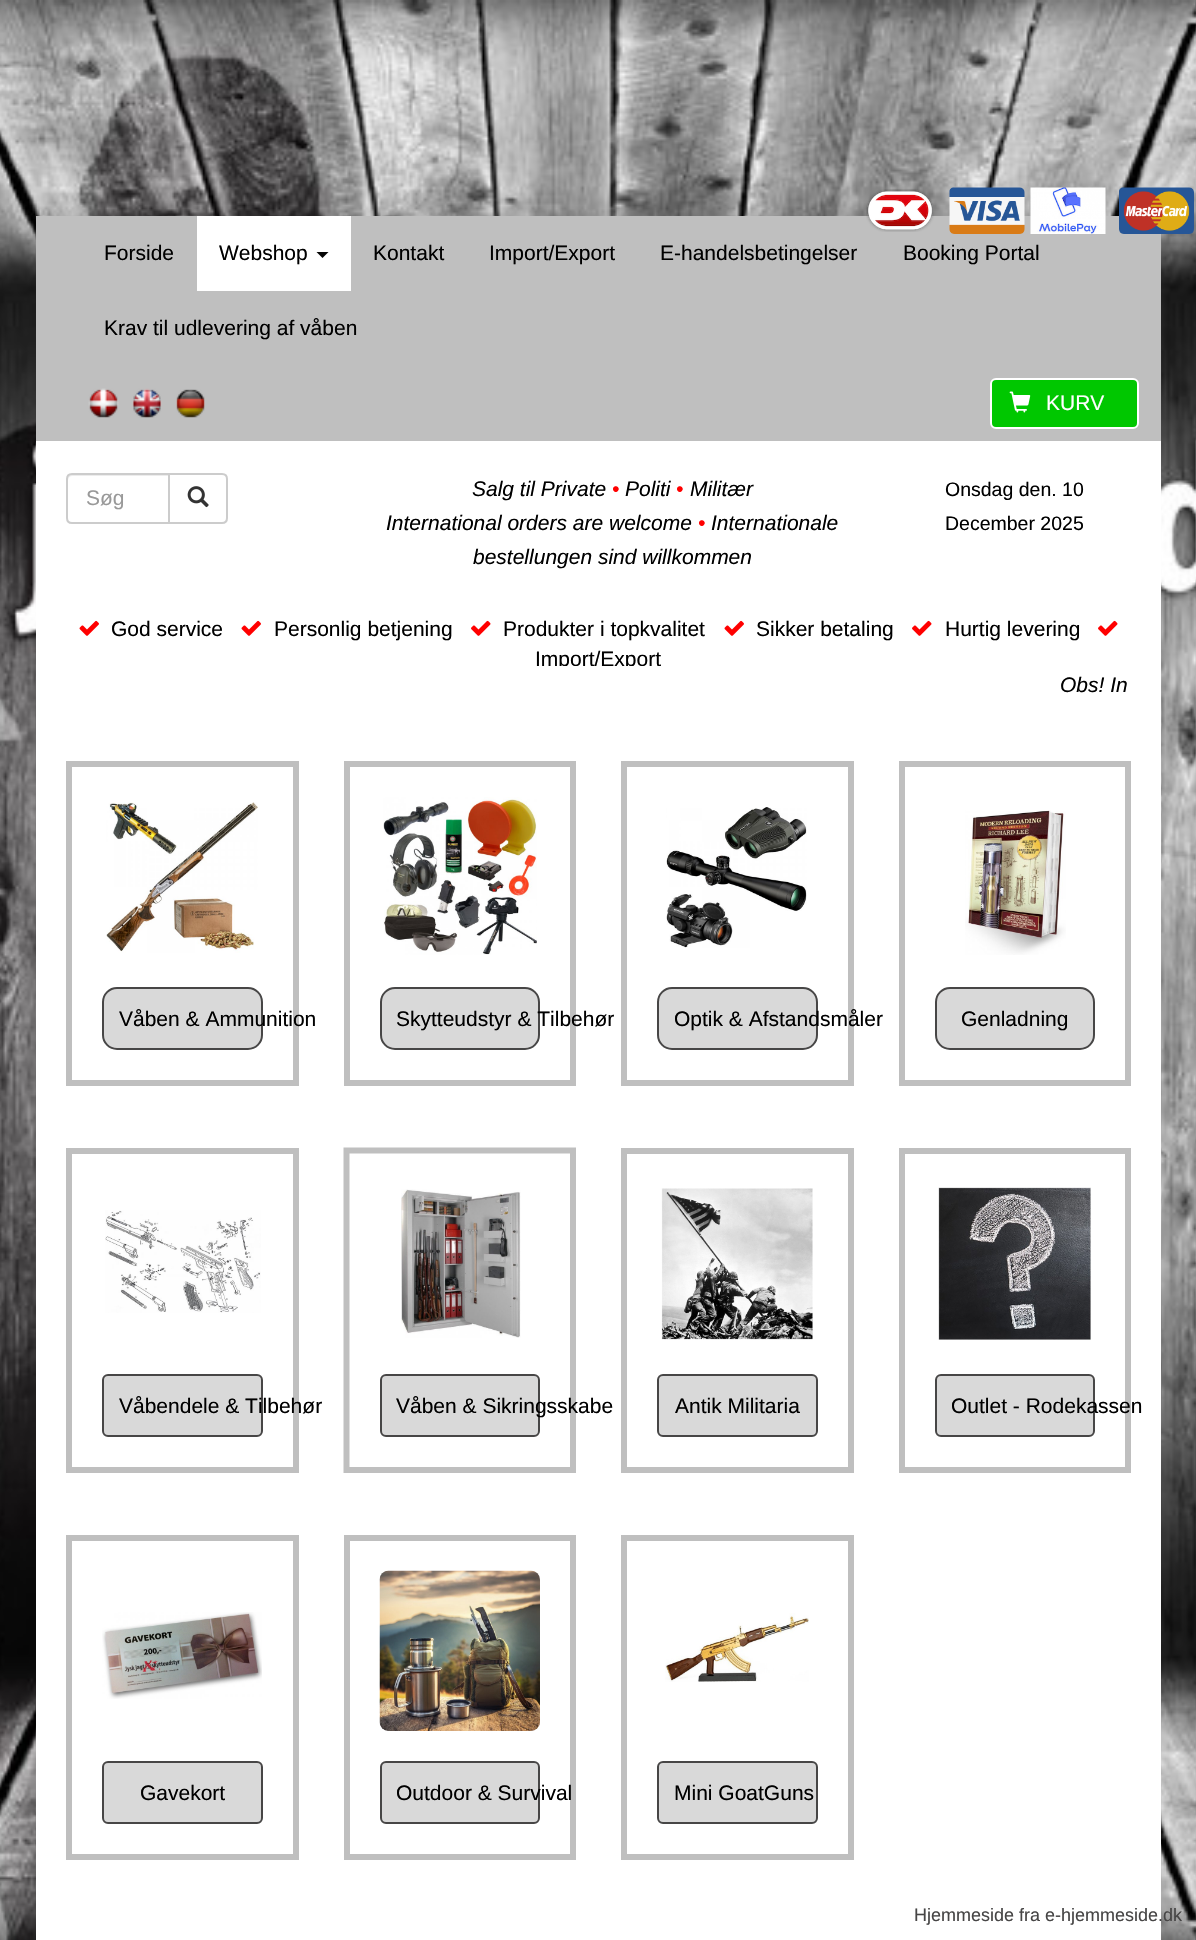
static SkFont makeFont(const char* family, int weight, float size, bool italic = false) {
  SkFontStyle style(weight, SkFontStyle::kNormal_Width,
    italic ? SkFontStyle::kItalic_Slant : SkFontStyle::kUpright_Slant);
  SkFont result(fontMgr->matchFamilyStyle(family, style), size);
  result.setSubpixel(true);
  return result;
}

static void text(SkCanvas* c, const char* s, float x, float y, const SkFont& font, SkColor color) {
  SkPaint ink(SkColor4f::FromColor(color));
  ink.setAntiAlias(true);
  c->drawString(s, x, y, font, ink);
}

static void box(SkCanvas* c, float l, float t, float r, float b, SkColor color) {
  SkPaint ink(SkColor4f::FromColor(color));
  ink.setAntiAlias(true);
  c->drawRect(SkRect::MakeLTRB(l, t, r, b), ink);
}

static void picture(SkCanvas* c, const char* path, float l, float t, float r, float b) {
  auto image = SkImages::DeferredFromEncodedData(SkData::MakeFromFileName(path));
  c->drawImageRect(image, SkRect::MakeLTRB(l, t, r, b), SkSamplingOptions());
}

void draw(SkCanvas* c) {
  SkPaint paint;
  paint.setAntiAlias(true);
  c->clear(0xffffffff);
  picture(c, "img_01.png", 0, 0, 1196, 1940);
  box(c, 36, 216, 1161, 441, 0xffbfbfbf);
  picture(c, "img_02.png", 866, 189, 935, 232);
  picture(c, "img_03.png", 949, 187, 1025, 234);
  picture(c, "img_04.png", 1030, 187, 1106, 234);
  picture(c, "img_05.png", 1119, 187, 1194, 234);
  SkFont face1 = makeFont("Liberation Sans", 400, 21);
  text(c, "Forside", 104, 260, face1, 0xff000000);
  box(c, 197, 216, 351, 291, 0xffffffff);
  text(c, "Webshop", 219, 260, face1, 0xff000000);
  paint.setColor(0xff050505);
  c->drawPath(SkPathBuilder().moveTo(316.5f, 252).lineTo(328.5f, 252).lineTo(322.5f, 258).close().detach(), paint);
  text(c, "Kontakt", 373, 260, face1, 0xff000000);
  text(c, "Import/Export", 489, 260, face1, 0xff000000);
  text(c, "E-handelsbetingelser", 660, 260, face1, 0xff000000);
  text(c, "Booking Portal", 903, 260, face1, 0xff000000);
  text(c, "Krav til udlevering af våben", 104, 335, face1, 0xff000000);
  picture(c, "img_06.png", 88, 388, 119, 418);
  picture(c, "img_07.png", 132, 388, 162, 418);
  picture(c, "img_08.png", 176, 389, 205, 418);
  paint.setColor(0xff00c700);
  c->drawRoundRect(SkRect::MakeLTRB(991, 379, 1138, 428), 5, 5, paint);
  paint.setStyle(SkPaint::kStroke_Style);
  paint.setStrokeWidth(2);
  paint.setColor(0xffffffff);
  c->drawRoundRect(SkRect::MakeLTRB(991, 379, 1138, 428), 5, 5, paint);
  picture(c, "img_09.png", 1009, 391, 1031, 413);
  text(c, "KURV", 1046, 410, face1, 0xffffffff);
  box(c, 36, 441, 1161, 666, 0xffffffff);
  paint.setStyle(SkPaint::kFill_Style);
  paint.setColor(0xffececec);
  c->drawPath(SkPathBuilder().moveTo(72, 476).lineTo(168, 476).lineTo(168, 474).lineTo(73, 474).cubicTo(70, 474, 68, 476, 68, 479).lineTo(68, 480).cubicTo(68, 478, 70, 476, 72, 476).close().detach(), paint);
  paint.setStyle(SkPaint::kStroke_Style);
  paint.setColor(0xffcccccc);
  c->drawPath(SkPathBuilder().moveTo(72, 474).lineTo(169, 474).lineTo(169, 523).lineTo(72, 523).cubicTo(69, 523, 67, 521, 67, 518).lineTo(67, 479).cubicTo(67, 476, 69, 474, 72, 474).close().detach(), paint);
  text(c, "Søg", 86, 505, face1, 0xff999999);
  paint.setStyle(SkPaint::kFill_Style);
  paint.setColor(0xffffffff);
  c->drawPath(SkPathBuilder().moveTo(169, 474).lineTo(222, 474).cubicTo(225, 474, 227, 476, 227, 479).lineTo(227, 518).cubicTo(227, 521, 225, 523, 222, 523).lineTo(169, 523).close().detach(), paint);
  paint.setStyle(SkPaint::kStroke_Style);
  paint.setColor(0xffcccccc);
  c->drawPath(SkPathBuilder().moveTo(169, 474).lineTo(222, 474).cubicTo(225, 474, 227, 476, 227, 479).lineTo(227, 518).cubicTo(227, 521, 225, 523, 222, 523).lineTo(169, 523).close().detach(), paint);
  picture(c, "img_10.png", 187, 486, 209, 508);
  SkFont face2 = makeFont("Liberation Sans", 400, 21, true);
  text(c, "Salg til Private", 472, 496, face2, 0xff000000);
  text(c, "•", 612, 496, face2, 0xffff0000);
  text(c, "Politi", 625, 496, face2, 0xff000000);
  text(c, "•", 676, 496, face2, 0xffff0000);
  text(c, "Militær", 690, 496, face2, 0xff000000);
  text(c, "International orders are welcome", 386, 530, face2, 0xff000000);
  text(c, "•", 698, 530, face2, 0xffff0000);
  text(c, "Internationale", 711, 530, face2, 0xff000000);
  text(c, "bestellungen sind willkommen", 473, 564, face2, 0xff000000);
  SkFont face3 = makeFont("Liberation Sans", 400, 19.5f);
  text(c, "Onsdag den. 10", 945, 496, face3, 0xff000000);
  text(c, "December 2025", 945, 530, face3, 0xff000000);
  picture(c, "img_11.png", 79, 620, 99, 636);
  text(c, "God service", 111, 636, face1, 0xff000000);
  picture(c, "img_11.png", 241, 620, 261, 636);
  text(c, "Personlig betjening", 274, 636, face1, 0xff000000);
  picture(c, "img_12.png", 471, 620, 491, 636);
  text(c, "Produkter i topkvalitet", 503, 636, face1, 0xff000000);
  picture(c, "img_11.png", 724, 620, 744, 636);
  text(c, "Sikker betaling", 756, 636, face1, 0xff000000);
  picture(c, "img_12.png", 912, 620, 932, 636);
  text(c, "Hurtig levering", 945, 636, face1, 0xff000000);
  picture(c, "img_12.png", 1098, 620, 1118, 636);
  text(c, "Import/Export", 535, 666, face1, 0xff000000);
  box(c, 36, 666, 1161, 1940, 0xffffffff);
  text(c, "Obs! In", 1060, 692, face2, 0xff000000);
  paint.setStrokeWidth(6);
  paint.setColor(0xffbfbfbf);
  c->drawRect(SkRect::MakeLTRB(69, 764, 296, 1083), paint);
  picture(c, "img_13.png", 106, 802, 258, 953);
  paint.setStyle(SkPaint::kFill_Style);
  paint.setColor(0xffd9d9d9);
  c->drawRoundRect(SkRect::MakeLTRB(103, 988, 262, 1049), 14, 14, paint);
  paint.setStyle(SkPaint::kStroke_Style);
  paint.setStrokeWidth(2);
  paint.setColor(0xff474646);
  c->drawRoundRect(SkRect::MakeLTRB(103, 988, 262, 1049), 14, 14, paint);
  text(c, "Våben & Ammunition", 119, 1026, face1, 0xff000000);
  paint.setStrokeWidth(6);
  paint.setColor(0xffbfbfbf);
  c->drawRect(SkRect::MakeLTRB(347, 764, 573, 1083), paint);
  picture(c, "img_14.png", 383, 797, 537, 955);
  paint.setStyle(SkPaint::kFill_Style);
  paint.setColor(0xffd9d9d9);
  c->drawRoundRect(SkRect::MakeLTRB(381, 988, 539, 1049), 14, 14, paint);
  paint.setStyle(SkPaint::kStroke_Style);
  paint.setStrokeWidth(2);
  paint.setColor(0xff474646);
  c->drawRoundRect(SkRect::MakeLTRB(381, 988, 539, 1049), 14, 14, paint);
  text(c, "Skytteudstyr & Tilbehør", 396, 1026, face1, 0xff000000);
  paint.setStrokeWidth(6);
  paint.setColor(0xffbfbfbf);
  c->drawRect(SkRect::MakeLTRB(624, 764, 851, 1083), paint);
  picture(c, "img_15.png", 666, 807, 807, 948);
  paint.setStyle(SkPaint::kFill_Style);
  paint.setColor(0xffd9d9d9);
  c->drawRoundRect(SkRect::MakeLTRB(658, 988, 817, 1049), 14, 14, paint);
  paint.setStyle(SkPaint::kStroke_Style);
  paint.setStrokeWidth(2);
  paint.setColor(0xff474646);
  c->drawRoundRect(SkRect::MakeLTRB(658, 988, 817, 1049), 14, 14, paint);
  text(c, "Optik & Afstandsmåler", 674, 1026, face1, 0xff000000);
  paint.setStrokeWidth(6);
  paint.setColor(0xffbfbfbf);
  c->drawRect(SkRect::MakeLTRB(902, 764, 1128, 1083), paint);
  picture(c, "img_16.png", 965, 810, 1066, 955);
  paint.setStyle(SkPaint::kFill_Style);
  paint.setColor(0xffd9d9d9);
  c->drawRoundRect(SkRect::MakeLTRB(936, 988, 1094, 1049), 14, 14, paint);
  paint.setStyle(SkPaint::kStroke_Style);
  paint.setStrokeWidth(2);
  paint.setColor(0xff474646);
  c->drawRoundRect(SkRect::MakeLTRB(936, 988, 1094, 1049), 14, 14, paint);
  text(c, "Genladning", 961, 1026, face1, 0xff000000);
  paint.setStrokeWidth(6);
  paint.setColor(0xffbfbfbf);
  c->drawRect(SkRect::MakeLTRB(69, 1151, 296, 1470), paint);
  picture(c, "img_17.png", 105, 1210, 261, 1313);
  paint.setStyle(SkPaint::kFill_Style);
  paint.setColor(0xffd9d9d9);
  c->drawRoundRect(SkRect::MakeLTRB(103, 1375, 262, 1436), 5, 5, paint);
  paint.setStyle(SkPaint::kStroke_Style);
  paint.setStrokeWidth(2);
  paint.setColor(0xff474646);
  c->drawRoundRect(SkRect::MakeLTRB(103, 1375, 262, 1436), 5, 5, paint);
  text(c, "Våbendele & Tilbehør", 119, 1413, face1, 0xff000000);
  paint.setStrokeWidth(6);
  paint.setColor(0xffbfbfbf);
  c->drawPath(SkPathBuilder().moveTo(346.5f, 1150.5f).lineTo(573, 1150.5f).lineTo(573, 1470).lineTo(346.5f, 1470).close().detach(), paint);
  picture(c, "img_18.png", 401, 1189, 521, 1338);
  paint.setStyle(SkPaint::kFill_Style);
  paint.setColor(0xffd9d9d9);
  c->drawRoundRect(SkRect::MakeLTRB(381, 1375, 539, 1436), 5, 5, paint);
  paint.setStyle(SkPaint::kStroke_Style);
  paint.setStrokeWidth(2);
  paint.setColor(0xff474646);
  c->drawRoundRect(SkRect::MakeLTRB(381, 1375, 539, 1436), 5, 5, paint);
  text(c, "Våben & Sikringsskabe", 396, 1413, face1, 0xff000000);
  paint.setStrokeWidth(6);
  paint.setColor(0xffbfbfbf);
  c->drawRect(SkRect::MakeLTRB(624, 1151, 851, 1470), paint);
  picture(c, "img_19.png", 661, 1188, 813, 1340);
  paint.setStyle(SkPaint::kFill_Style);
  paint.setColor(0xffd9d9d9);
  c->drawRoundRect(SkRect::MakeLTRB(658, 1375, 817, 1436), 5, 5, paint);
  paint.setStyle(SkPaint::kStroke_Style);
  paint.setStrokeWidth(2);
  paint.setColor(0xff474646);
  c->drawRoundRect(SkRect::MakeLTRB(658, 1375, 817, 1436), 5, 5, paint);
  text(c, "Antik Militaria", 675, 1413, face1, 0xff000000);
  paint.setStrokeWidth(6);
  paint.setColor(0xffbfbfbf);
  c->drawRect(SkRect::MakeLTRB(902, 1151, 1128, 1470), paint);
  picture(c, "img_20.png", 938, 1187, 1091, 1340);
  paint.setStyle(SkPaint::kFill_Style);
  paint.setColor(0xffd9d9d9);
  c->drawRoundRect(SkRect::MakeLTRB(936, 1375, 1094, 1436), 5, 5, paint);
  paint.setStyle(SkPaint::kStroke_Style);
  paint.setStrokeWidth(2);
  paint.setColor(0xff474646);
  c->drawRoundRect(SkRect::MakeLTRB(936, 1375, 1094, 1436), 5, 5, paint);
  text(c, "Outlet - Rodekassen", 951, 1413, face1, 0xff000000);
  paint.setStrokeWidth(6);
  paint.setColor(0xffbfbfbf);
  c->drawRect(SkRect::MakeLTRB(69, 1538, 296, 1857), paint);
  picture(c, "img_21.png", 102, 1612, 262, 1699);
  paint.setStyle(SkPaint::kFill_Style);
  paint.setColor(0xffd9d9d9);
  c->drawRoundRect(SkRect::MakeLTRB(103, 1762, 262, 1823), 5, 5, paint);
  paint.setStyle(SkPaint::kStroke_Style);
  paint.setStrokeWidth(2);
  paint.setColor(0xff474646);
  c->drawRoundRect(SkRect::MakeLTRB(103, 1762, 262, 1823), 5, 5, paint);
  text(c, "Gavekort", 140, 1800, face1, 0xff000000);
  paint.setStrokeWidth(6);
  paint.setColor(0xffbfbfbf);
  c->drawRect(SkRect::MakeLTRB(347, 1538, 573, 1857), paint);
  picture(c, "img_22.png", 379, 1570, 540, 1731);
  paint.setStyle(SkPaint::kFill_Style);
  paint.setColor(0xffd9d9d9);
  c->drawRoundRect(SkRect::MakeLTRB(381, 1762, 539, 1823), 5, 5, paint);
  paint.setStyle(SkPaint::kStroke_Style);
  paint.setStrokeWidth(2);
  paint.setColor(0xff474646);
  c->drawRoundRect(SkRect::MakeLTRB(381, 1762, 539, 1823), 5, 5, paint);
  text(c, "Outdoor & Survival", 396, 1800, face1, 0xff000000);
  paint.setStrokeWidth(6);
  paint.setColor(0xffbfbfbf);
  c->drawRect(SkRect::MakeLTRB(624, 1538, 851, 1857), paint);
  picture(c, "img_23.png", 665, 1613, 809, 1682);
  paint.setStyle(SkPaint::kFill_Style);
  paint.setColor(0xffd9d9d9);
  c->drawRoundRect(SkRect::MakeLTRB(658, 1762, 817, 1823), 5, 5, paint);
  paint.setStyle(SkPaint::kStroke_Style);
  paint.setStrokeWidth(2);
  paint.setColor(0xff474646);
  c->drawRoundRect(SkRect::MakeLTRB(658, 1762, 817, 1823), 5, 5, paint);
  text(c, "Mini GoatGuns", 674, 1800, face1, 0xff000000);
  SkFont face4 = makeFont("Liberation Sans", 400, 18);
  text(c, "Hjemmeside fra e-hjemmeside.dk", 914, 1921, face4, 0xff474646);
}
